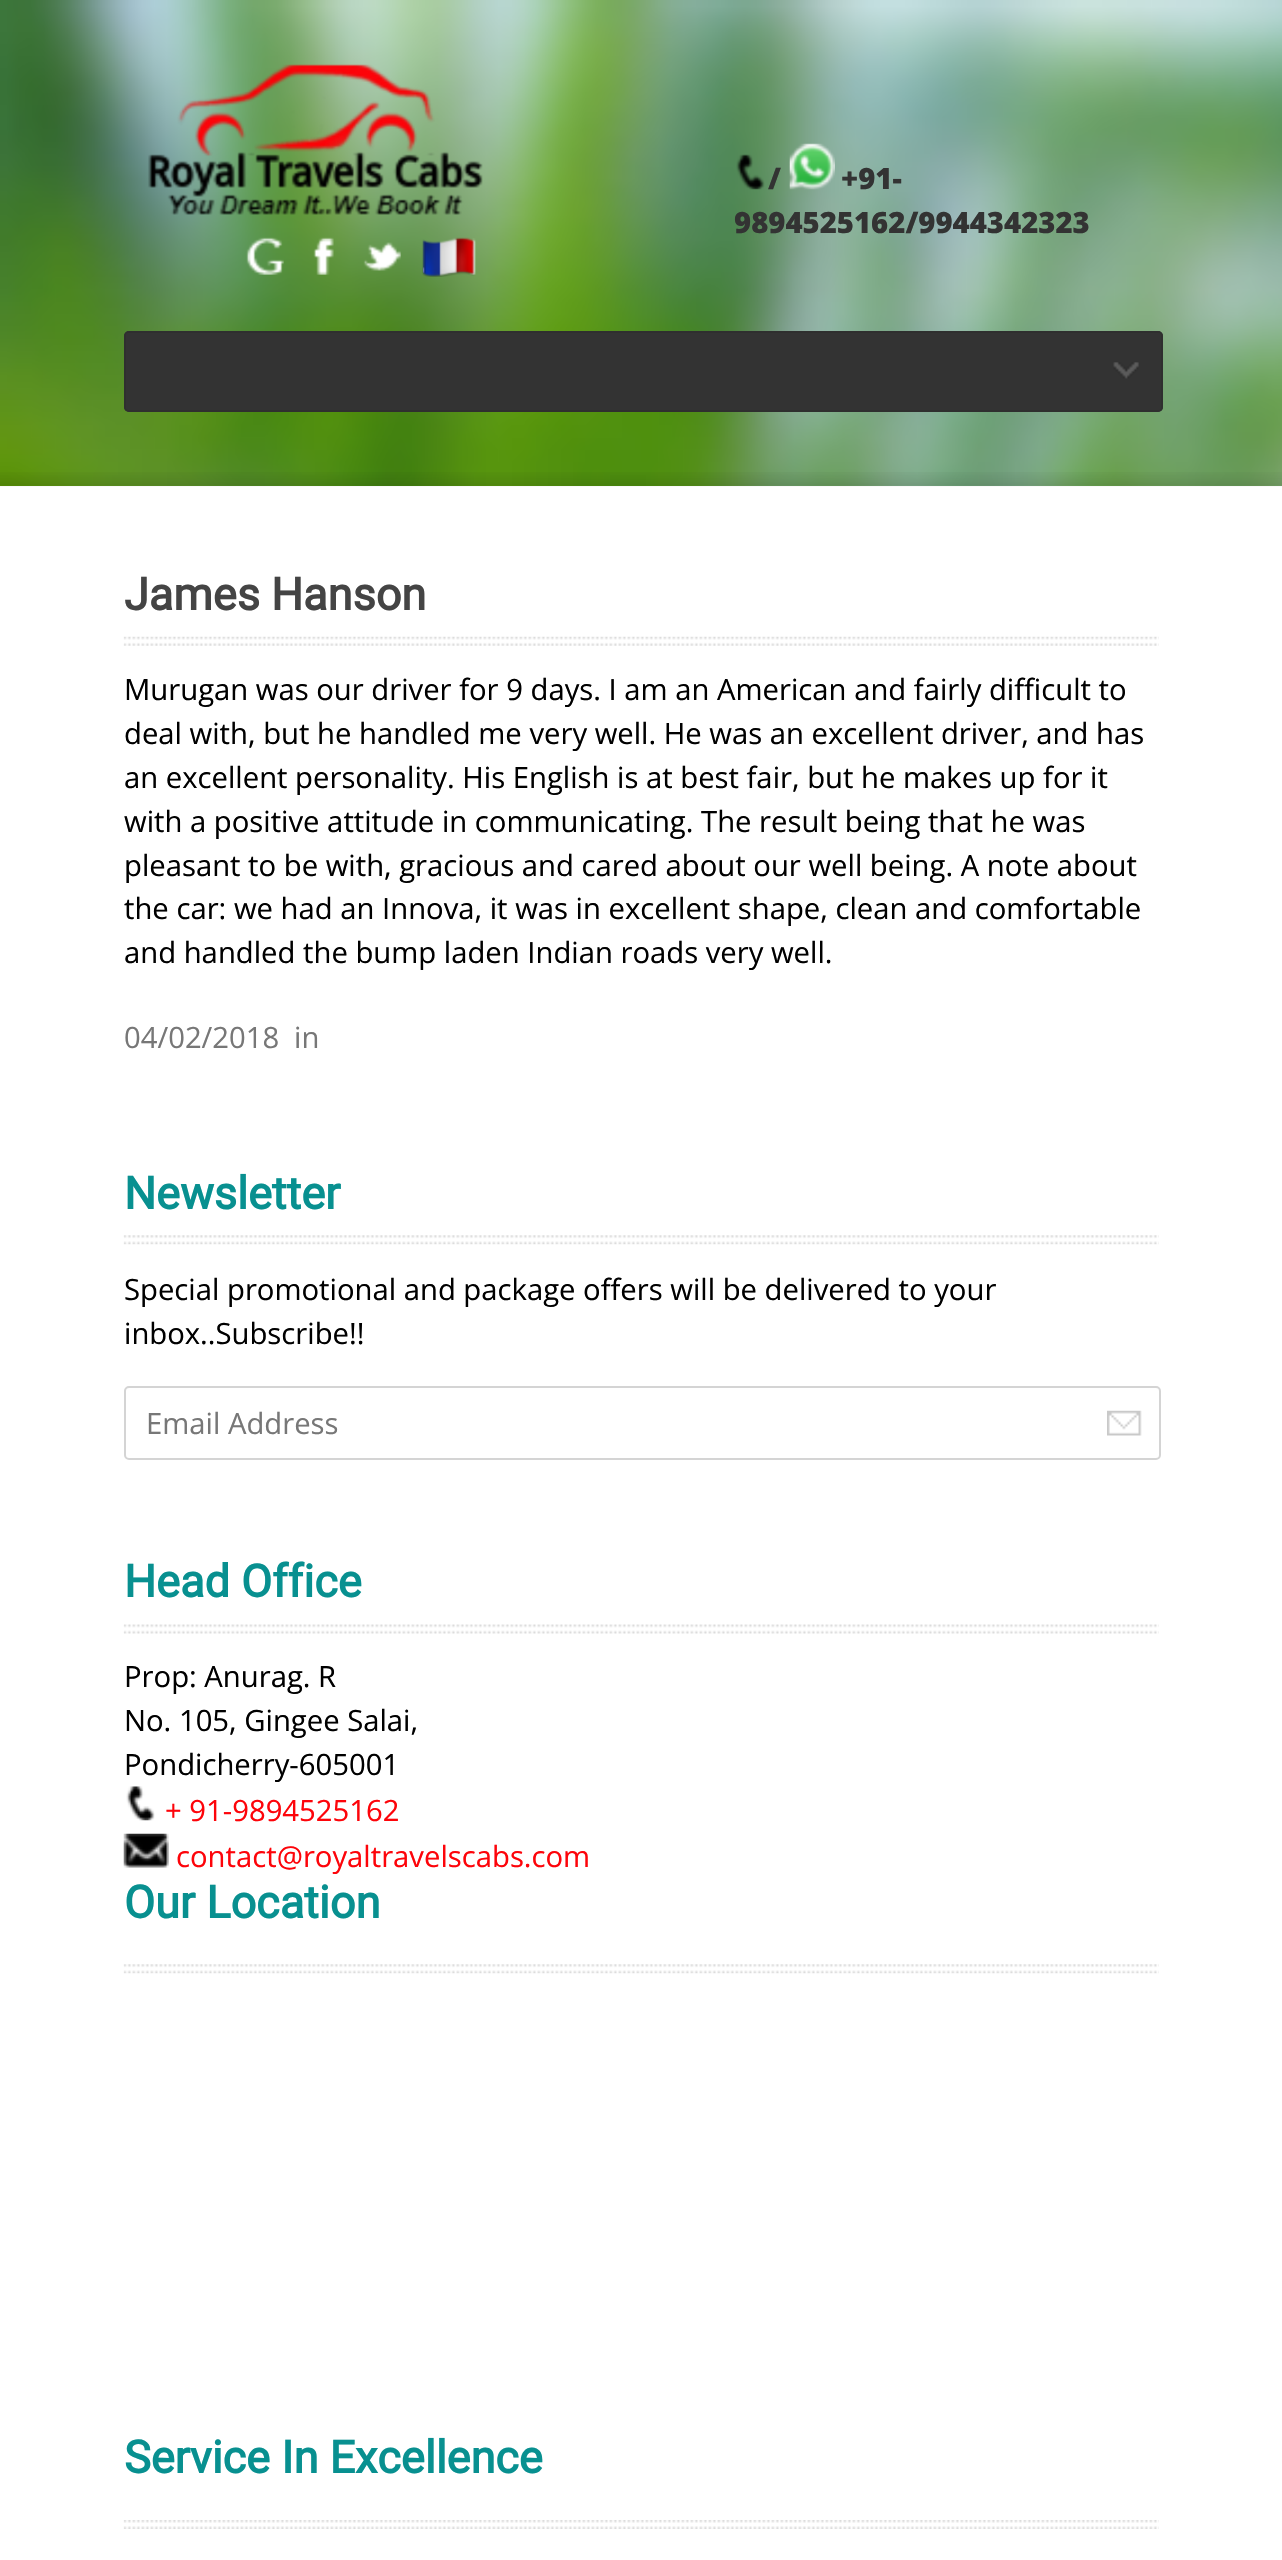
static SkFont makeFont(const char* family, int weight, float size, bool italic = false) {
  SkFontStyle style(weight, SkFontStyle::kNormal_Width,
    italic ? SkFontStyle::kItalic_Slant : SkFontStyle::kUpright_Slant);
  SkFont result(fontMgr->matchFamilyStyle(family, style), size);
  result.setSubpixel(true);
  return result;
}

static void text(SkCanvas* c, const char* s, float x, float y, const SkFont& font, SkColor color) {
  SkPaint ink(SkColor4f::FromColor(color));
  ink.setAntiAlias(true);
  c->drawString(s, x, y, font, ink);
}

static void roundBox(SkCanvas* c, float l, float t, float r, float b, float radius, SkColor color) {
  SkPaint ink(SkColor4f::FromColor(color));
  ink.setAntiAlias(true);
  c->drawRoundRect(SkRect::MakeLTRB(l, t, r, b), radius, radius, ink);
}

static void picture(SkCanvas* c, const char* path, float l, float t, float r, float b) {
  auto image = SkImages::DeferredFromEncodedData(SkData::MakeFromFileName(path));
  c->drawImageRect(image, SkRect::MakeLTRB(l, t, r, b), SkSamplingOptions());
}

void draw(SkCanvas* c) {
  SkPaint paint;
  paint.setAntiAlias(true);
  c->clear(0xffffffff);
  picture(c, "img_01.png", 0, 0, 1282, 486);
  picture(c, "img_02.png", 148, 64, 483, 215);
  picture(c, "img_03.png", 736, 154, 765, 190);
  SkFont face1 = makeFont("Open Sans", 800, 29.25f);
  text(c, "/", 768, 189, face1, 0xff333333);
  picture(c, "img_04.png", 789, 143, 835, 190);
  text(c, "+91-", 841, 189, face1, 0xff333333);
  text(c, "9894525162/9944342323", 734, 233, face1, 0xff333333);
  picture(c, "img_05.png", 246, 237, 284, 275);
  picture(c, "img_06.png", 313, 237, 334, 275);
  picture(c, "img_07.png", 363, 242, 401, 271);
  picture(c, "img_08.png", 423, 238, 476, 275);
  picture(c, "img_09.png", 422, 237, 475, 277);
  roundBox(c, 124, 331, 1163, 412, 5, 0xff333333);
  picture(c, "img_10.png", 1113, 362, 1139, 379);
  paint.setStyle(SkPaint::kStroke_Style);
  paint.setStrokeWidth(2);
  paint.setColor(0xff2f2f2f);
  c->drawRoundRect(SkRect::MakeLTRB(125, 332, 1162, 411), 4, 4, paint);
  picture(c, "img_11.png", 0, 472, 1282, 487);
  picture(c, "img_12.png", 123, 636, 1159, 646);
  SkFont face2 = makeFont("Roboto", 700, 45);
  text(c, "James Hanson", 124, 610, face2, 0xff444444);
  SkFont face3 = makeFont("Open Sans", 400, 29.25f);
  text(c, "Murugan was our driver for 9 days. I am an American and fairly difficult to", 124, 700, face3, 0xff000000);
  text(c, "deal with, but he handled me very well. He was an excellent driver, and has", 124, 744, face3, 0xff000000);
  text(c, "an excellent personality. His English is at best fair, but he makes up for it", 124, 788, face3, 0xff000000);
  text(c, "with a positive attitude in communicating. The result being that he was", 124, 832, face3, 0xff000000);
  text(c, "pleasant to be with, gracious and cared about our well being. A note about", 124, 876, face3, 0xff000000);
  text(c, "the car: we had an Innova, it was in excellent shape, clean and comfortable", 124, 919, face3, 0xff000000);
  text(c, "and handled the bump laden Indian roads very well.", 124, 963, face3, 0xff000000);
  text(c, "04/02/2018", 124, 1048, face3, 0xff777777);
  text(c, "in", 294, 1048, face3, 0xff777777);
  picture(c, "img_13.png", 123, 1235, 1159, 1245);
  text(c, "Newsletter", 124, 1209, face2, 0xff089090);
  text(c, "Special promotional and package offers will be delivered to your", 124, 1300, face3, 0xff000000);
  text(c, "inbox..Subscribe!!", 124, 1344, face3, 0xff000000);
  picture(c, "img_14.png", 1107, 1410, 1142, 1436);
  paint.setColor(0xffd4d4d4);
  c->drawRoundRect(SkRect::MakeLTRB(125, 1387, 1160, 1459), 4, 4, paint);
  text(c, "Email Address", 146, 1434, face3, 0xff777777);
  picture(c, "img_15.png", 123, 1624, 1159, 1634);
  text(c, "Head Office", 124, 1597, face2, 0xff089090);
  text(c, "Prop: Anurag. R", 124, 1687, face3, 0xff000000);
  text(c, "No. 105, Gingee Salai,", 124, 1731, face3, 0xff000000);
  text(c, "Pondicherry-605001", 124, 1775, face3, 0xff000000);
  picture(c, "img_16.png", 126, 1786, 155, 1821);
  text(c, "+ 91-9894525162", 165, 1821, face3, 0xfffd040a);
  picture(c, "img_17.png", 123, 1833, 169, 1868);
  text(c, "contact@royaltravelscabs.com", 176, 1867, face3, 0xfffd040a);
  picture(c, "img_18.png", 123, 1964, 1159, 1974);
  text(c, "Our Location", 124, 1918, face2, 0xff089090);
  picture(c, "img_19.png", 123, 2520, 1159, 2529);
  text(c, "Service In Excellence", 124, 2473, face2, 0xff089090);
}
